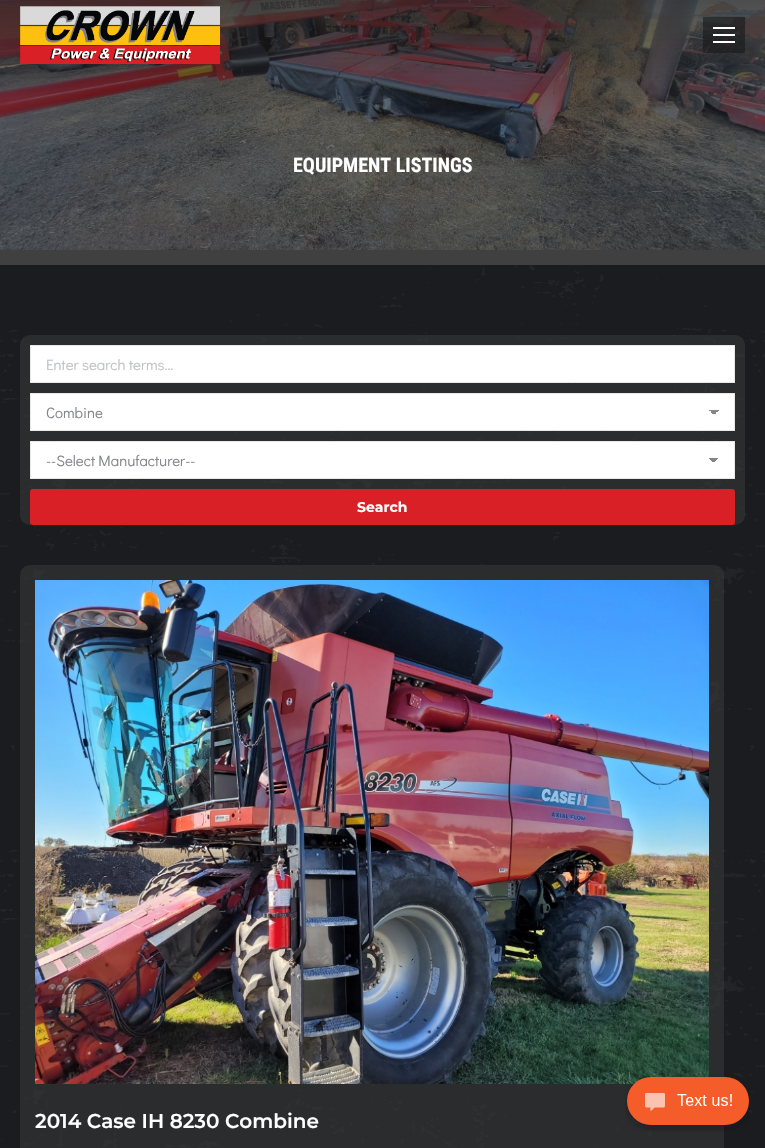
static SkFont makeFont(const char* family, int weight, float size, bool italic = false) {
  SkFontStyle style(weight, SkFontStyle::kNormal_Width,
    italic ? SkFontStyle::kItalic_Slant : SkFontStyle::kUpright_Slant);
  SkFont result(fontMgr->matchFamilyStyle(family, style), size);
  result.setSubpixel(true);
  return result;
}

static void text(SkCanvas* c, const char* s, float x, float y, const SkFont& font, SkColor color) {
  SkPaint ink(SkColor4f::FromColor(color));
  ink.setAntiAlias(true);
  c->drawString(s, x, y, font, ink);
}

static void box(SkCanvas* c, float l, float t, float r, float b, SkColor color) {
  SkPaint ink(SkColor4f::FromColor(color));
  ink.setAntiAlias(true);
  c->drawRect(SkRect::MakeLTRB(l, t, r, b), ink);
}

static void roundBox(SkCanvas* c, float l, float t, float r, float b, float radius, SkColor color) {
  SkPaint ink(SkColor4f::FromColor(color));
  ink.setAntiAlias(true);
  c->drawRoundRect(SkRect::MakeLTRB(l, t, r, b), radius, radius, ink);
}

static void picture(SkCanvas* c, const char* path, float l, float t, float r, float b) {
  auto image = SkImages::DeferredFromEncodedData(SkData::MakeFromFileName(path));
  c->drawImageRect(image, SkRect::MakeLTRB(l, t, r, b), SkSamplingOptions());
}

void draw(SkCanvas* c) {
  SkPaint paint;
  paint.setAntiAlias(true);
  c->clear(0xff1a1c20);
  picture(c, "img_01.png", 0, 265, 765, 1148);
  picture(c, "img_03.png", 0, 0, 765, 250);
  picture(c, "img_02.png", 20, 6, 220, 64);
  box(c, 703, 17, 745, 53, 0x96161616);
  box(c, 713, 27, 735, 29, 0xffffffff);
  box(c, 713, 34, 735, 36, 0xffffffff);
  box(c, 713, 41, 735, 43, 0xffffffff);
  box(c, 0, 250, 765, 265, 0xff404040);
  SkFont face1 = makeFont("Roboto Condensed", 700, 20);
  text(c, "EQUIPMENT LISTINGS", 293, 172, face1, 0xffffffff);
  roundBox(c, 20, 335, 745, 525, 10, 0x803c3c3c);
  paint.setColor(0xffffffff);
  c->drawRect(SkRect::MakeLTRB(30.5f, 345.5f, 734.5f, 382.5f), paint);
  paint.setStyle(SkPaint::kStroke_Style);
  paint.setStrokeWidth(1);
  paint.setColor(0xffe7e7e7);
  c->drawRect(SkRect::MakeLTRB(30.5f, 345.5f, 734.5f, 382.5f), paint);
  SkFont face2 = makeFont("Didact Gothic", 400, 15);
  text(c, "Enter search terms…", 46, 370, face2, 0xffc2c3c6);
  box(c, 31, 394, 734, 430, 0xffffffff);
  paint.setStyle(SkPaint::kFill_Style);
  {
    const SkColor colors[] = {0xff85868c, 0xffffffff};
    const float stops[] = {0.5f, 0.5f};
    const SkPoint ends[] = {{714, 410}, {719, 415}};
    paint.setShader(SkGradientShader::MakeLinear(ends, colors, stops, 2, SkTileMode::kClamp));
    paint.setAlpha(255);
  }
  c->drawRect(SkRect::MakeLTRB(714, 410, 719, 414), paint);
  {
    const SkColor colors[] = {0xffffffff, 0xff85868c};
    const float stops[] = {0.5f, 0.5f};
    const SkPoint ends[] = {{709, 415}, {714, 410}};
    paint.setShader(SkGradientShader::MakeLinear(ends, colors, stops, 2, SkTileMode::kClamp));
    paint.setAlpha(255);
  }
  c->drawRect(SkRect::MakeLTRB(709, 410, 714, 414), paint);
  paint.setStyle(SkPaint::kStroke_Style);
  paint.setShader(nullptr);
  paint.setColor(0xffe7e7e7);
  c->drawRect(SkRect::MakeLTRB(30.5f, 393.5f, 734.5f, 430.5f), paint);
  text(c, "Combine", 46, 418, face2, 0xff85868c);
  box(c, 31, 442, 734, 478, 0xffffffff);
  paint.setStyle(SkPaint::kFill_Style);
  {
    const SkColor colors[] = {0xff85868c, 0xffffffff};
    const float stops[] = {0.5f, 0.5f};
    const SkPoint ends[] = {{714, 458}, {719, 463}};
    paint.setShader(SkGradientShader::MakeLinear(ends, colors, stops, 2, SkTileMode::kClamp));
    paint.setAlpha(255);
  }
  c->drawRect(SkRect::MakeLTRB(714, 458, 719, 462), paint);
  {
    const SkColor colors[] = {0xffffffff, 0xff85868c};
    const float stops[] = {0.5f, 0.5f};
    const SkPoint ends[] = {{709, 463}, {714, 458}};
    paint.setShader(SkGradientShader::MakeLinear(ends, colors, stops, 2, SkTileMode::kClamp));
    paint.setAlpha(255);
  }
  c->drawRect(SkRect::MakeLTRB(709, 458, 714, 462), paint);
  paint.setStyle(SkPaint::kStroke_Style);
  paint.setShader(nullptr);
  paint.setColor(0xffe7e7e7);
  c->drawRect(SkRect::MakeLTRB(30.5f, 441.5f, 734.5f, 478.5f), paint);
  text(c, "--Select Manufacturer--", 46, 466, face2, 0xff85868c);
  roundBox(c, 30, 489, 735, 525, 3, 0xffd92027);
  SkFont face3 = makeFont("Montserrat", 700, 14);
  text(c, "Search", 357, 512, face3, 0xffffffff);
  roundBox(c, 20, 565, 724, 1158, 10, 0x803c3c3c);
  picture(c, "img_04.png", 35, 580, 709, 1084);
  SkFont face4 = makeFont("Montserrat", 600, 20);
  text(c, "2014 Case IH 8230 Combine", 35, 1128, face4, 0xffffffff);
  picture(c, "img_05.png", 625, 1074, 750, 1132);
}
